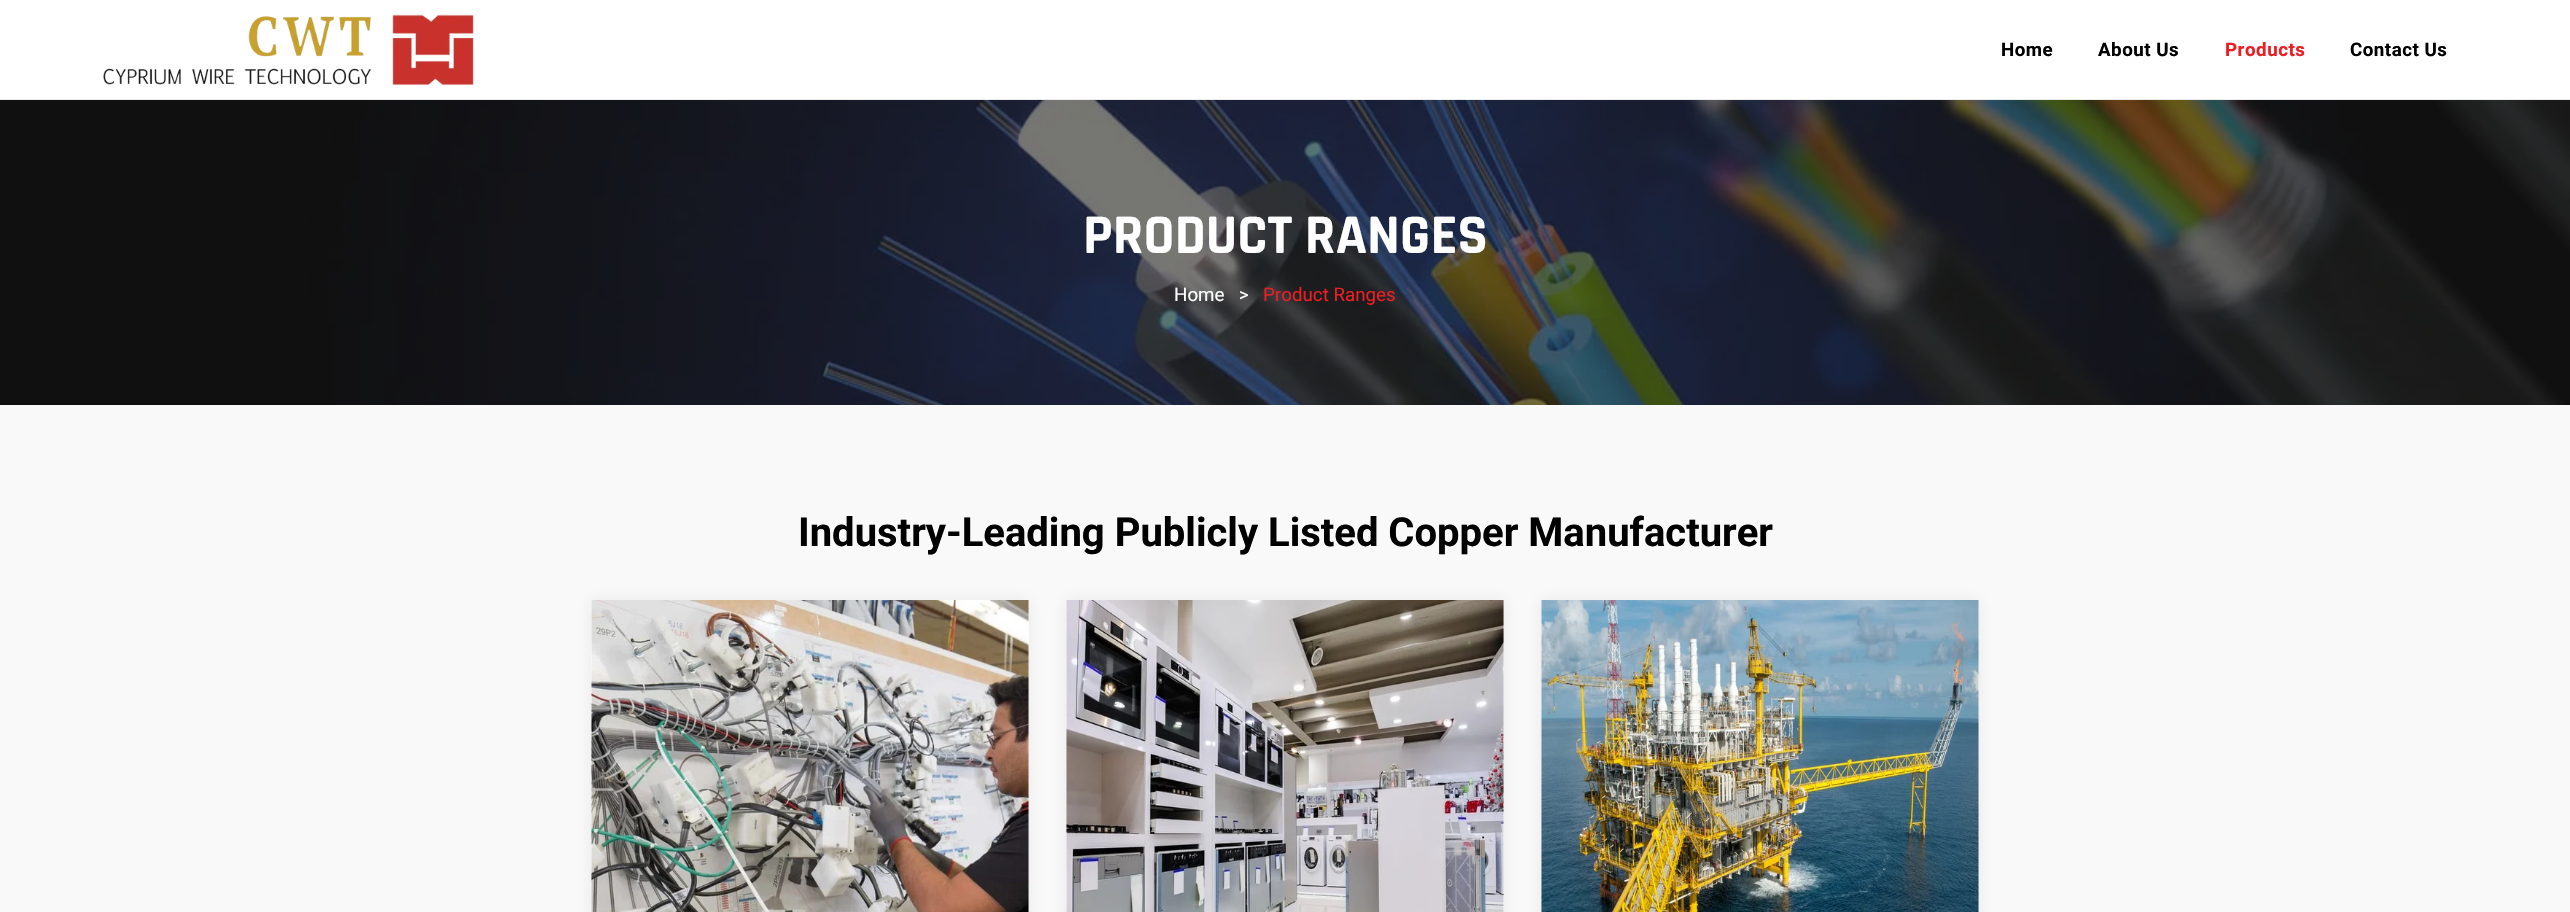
static SkFont makeFont(const char* family, int weight, float size, bool italic = false) {
  SkFontStyle style(weight, SkFontStyle::kNormal_Width,
    italic ? SkFontStyle::kItalic_Slant : SkFontStyle::kUpright_Slant);
  SkFont result(fontMgr->matchFamilyStyle(family, style), size);
  result.setSubpixel(true);
  return result;
}

static void text(SkCanvas* c, const char* s, float x, float y, const SkFont& font, SkColor color) {
  SkPaint ink(SkColor4f::FromColor(color));
  ink.setAntiAlias(true);
  c->drawString(s, x, y, font, ink);
}

static void spacedText(SkCanvas* c, const char* s, float x, float y, const SkFont& font, const SkPaint& ink, float letter, float word) {
  std::vector<SkGlyphID> glyphs(font.countText(s, strlen(s), SkTextEncoding::kUTF8));
  std::vector<float> xs(glyphs.size());
  font.textToGlyphs(s, strlen(s), SkTextEncoding::kUTF8, glyphs);
  font.getXPos(glyphs, xs, x);
  float extra = 0;
  for (size_t i = 0; i < glyphs.size(); i++) {
    xs[i] += extra;
    extra += letter + word * (glyphs[i] == font.unicharToGlyph(' '));
  }
  c->drawTextBlob(SkTextBlob::MakeFromPosHGlyphs(glyphs, xs, y, font), 0, 0, ink);
}

static void box(SkCanvas* c, float l, float t, float r, float b, SkColor color) {
  SkPaint ink(SkColor4f::FromColor(color));
  ink.setAntiAlias(true);
  c->drawRect(SkRect::MakeLTRB(l, t, r, b), ink);
}

static void picture(SkCanvas* c, const char* path, float l, float t, float r, float b) {
  auto image = SkImages::DeferredFromEncodedData(SkData::MakeFromFileName(path));
  c->drawImageRect(image, SkRect::MakeLTRB(l, t, r, b), SkSamplingOptions());
}

void draw(SkCanvas* c) {
  SkPaint paint;
  paint.setAntiAlias(true);
  c->clear(0xffffffff);
  box(c, 0, 99, 2570, 100, 0xffededed);
  picture(c, "img_01.png", 103, 14, 474, 85);
  SkFont face1 = makeFont("Roboto", 700, 18.75f);
  paint.setColor(0xff000000);
  spacedText(c, "Home", 2001, 56, face1, paint, 0.5f, 0);
  spacedText(c, "About Us", 2098, 56, face1, paint, 0.5f, 0);
  SkFont face2 = makeFont("Heebo", 700, 18.75f);
  paint.setColor(0xffec1e24);
  spacedText(c, "Products", 2225, 56, face2, paint, 0.5f, 0);
  paint.setColor(0xff000000);
  spacedText(c, "Contact Us", 2350, 56, face1, paint, 0.5f, 0);
  picture(c, "img_02.png", 0, 100, 2570, 405);
  SkFont face3 = makeFont("Rajdhani", 700, 56.25f);
  text(c, "PRODUCT RANGES", 1083, 253, face3, 0xffffffff);
  SkFont face4 = makeFont("Heebo", 400, 18.75f);
  text(c, "Home", 1174, 301, face4, 0xffffffff);
  text(c, ">", 1239, 301, face4, 0xffffffff);
  text(c, "Product Ranges", 1263, 301, face4, 0xffec1e24);
  box(c, 0, 405, 2570, 912, 0xfff9f9f9);
  SkFont face5 = makeFont("Roboto", 700, 40);
  text(c, "Industry-Leading Publicly Listed Copper Manufacturer", 798, 546, face5, 0xff000000);
  paint.setColor(0x14282828);
  paint.setMaskFilter(SkMaskFilter::MakeBlur(kNormal_SkBlurStyle, 7.5f));
  c->drawRect(SkRect::MakeLTRB(591, 600, 1029, 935), paint);
  paint.setMaskFilter(nullptr);
  box(c, 591, 600, 1029, 912, 0xffffffff);
  picture(c, "img_03.png", 591, 600, 1029, 912);
  paint.setMaskFilter(SkMaskFilter::MakeBlur(kNormal_SkBlurStyle, 7.5f));
  c->drawRect(SkRect::MakeLTRB(1066, 600, 1504, 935), paint);
  paint.setMaskFilter(nullptr);
  box(c, 1066, 600, 1504, 912, 0xffffffff);
  picture(c, "img_04.png", 1066, 600, 1504, 912);
  paint.setMaskFilter(SkMaskFilter::MakeBlur(kNormal_SkBlurStyle, 7.5f));
  c->drawRect(SkRect::MakeLTRB(1541, 600, 1979, 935), paint);
  paint.setMaskFilter(nullptr);
  box(c, 1541, 600, 1979, 912, 0xffffffff);
  picture(c, "img_05.png", 1541, 600, 1979, 912);
}
